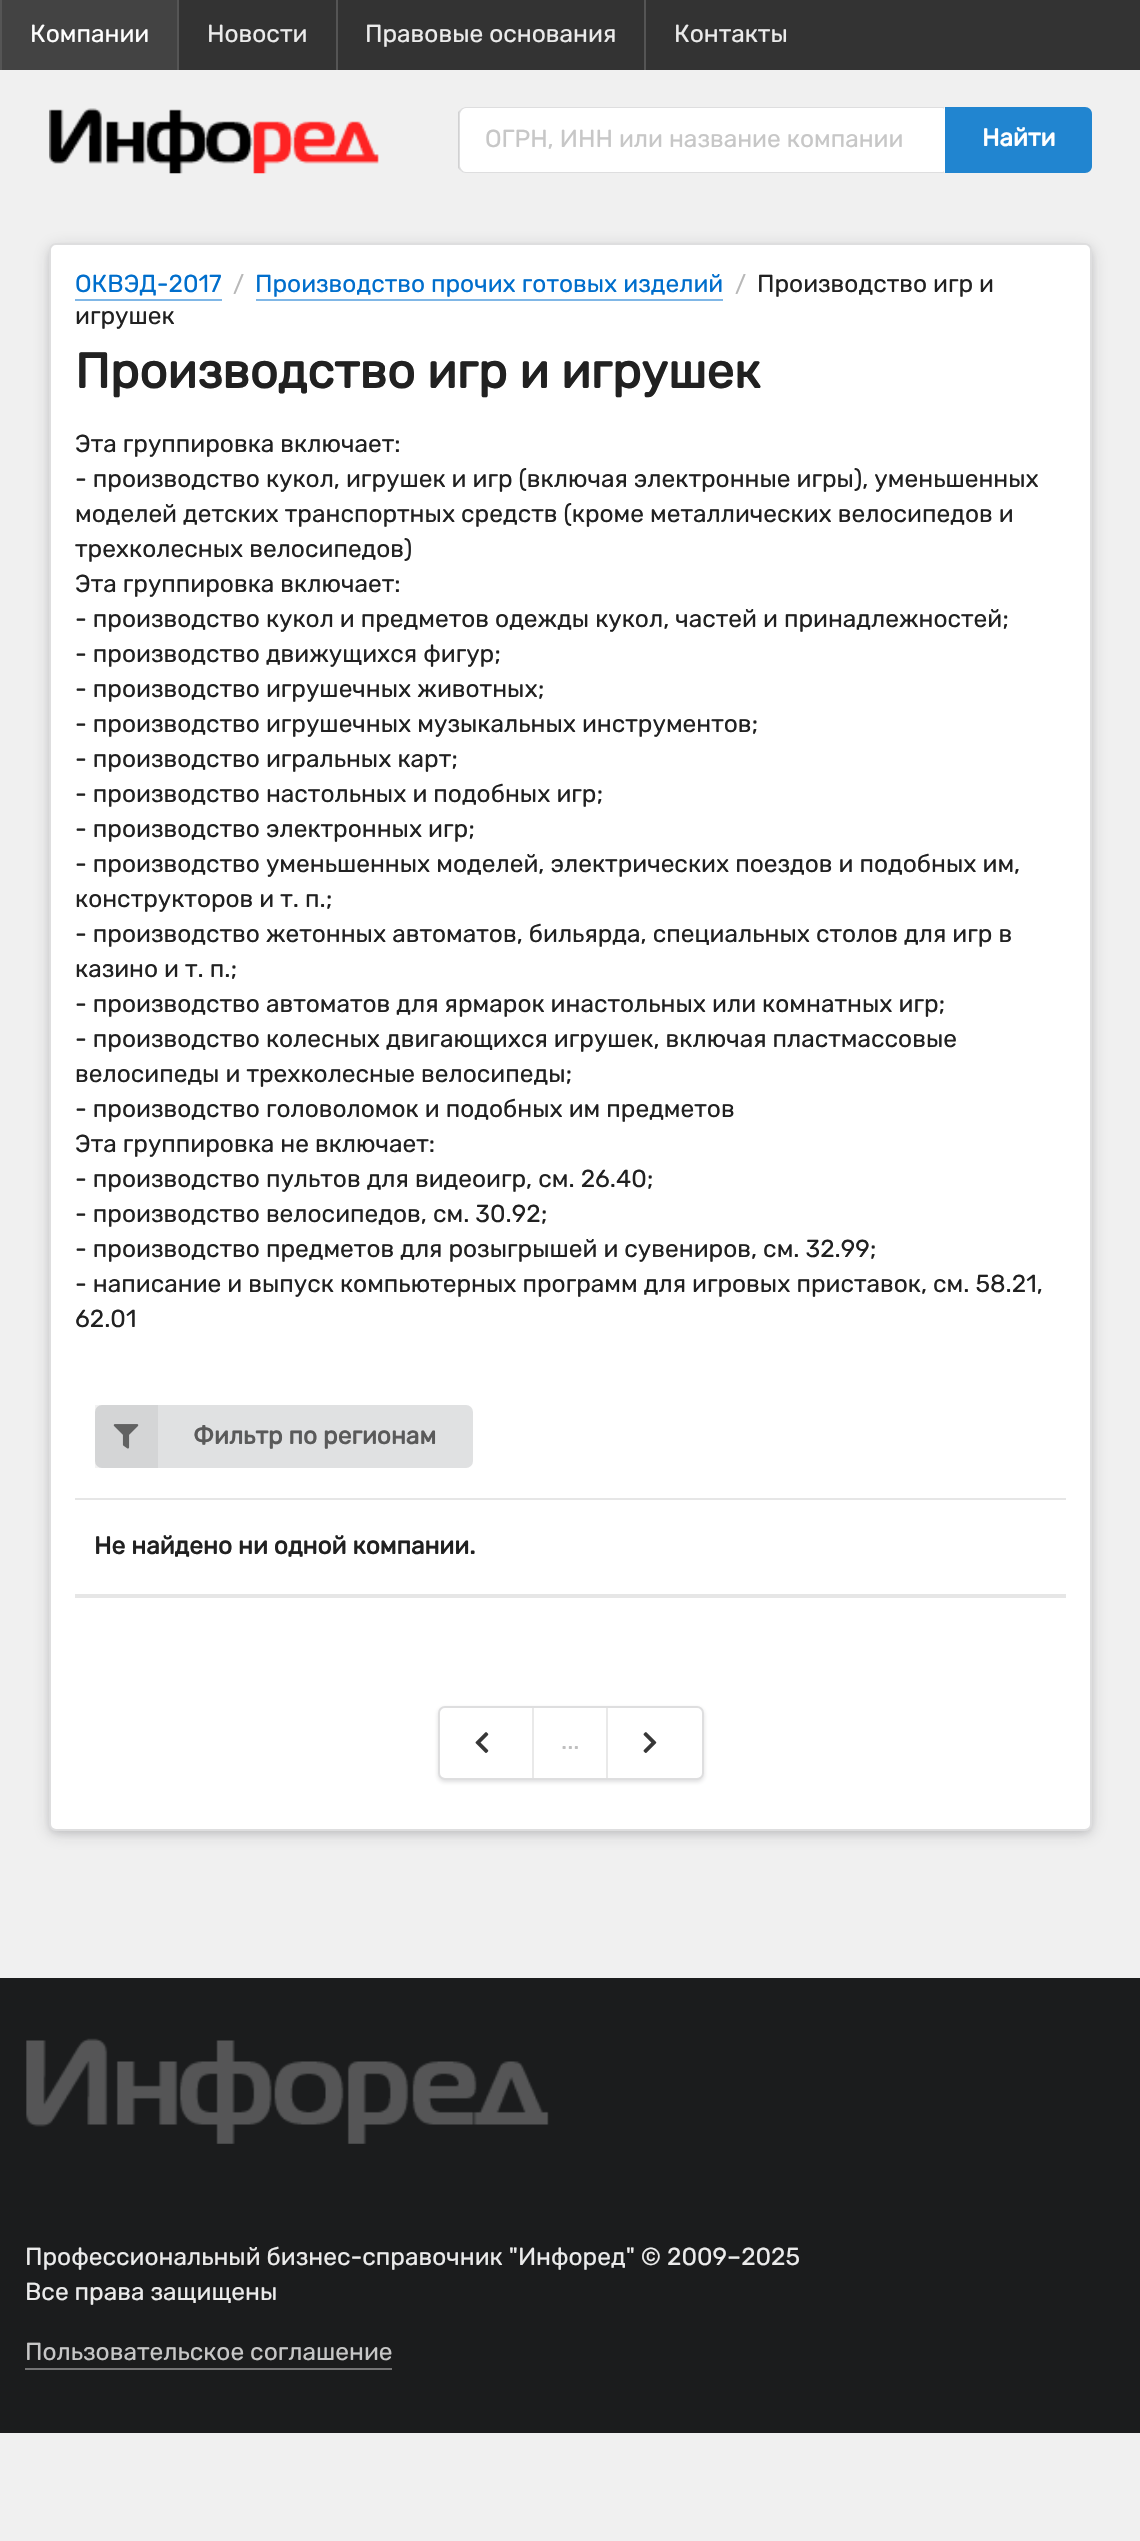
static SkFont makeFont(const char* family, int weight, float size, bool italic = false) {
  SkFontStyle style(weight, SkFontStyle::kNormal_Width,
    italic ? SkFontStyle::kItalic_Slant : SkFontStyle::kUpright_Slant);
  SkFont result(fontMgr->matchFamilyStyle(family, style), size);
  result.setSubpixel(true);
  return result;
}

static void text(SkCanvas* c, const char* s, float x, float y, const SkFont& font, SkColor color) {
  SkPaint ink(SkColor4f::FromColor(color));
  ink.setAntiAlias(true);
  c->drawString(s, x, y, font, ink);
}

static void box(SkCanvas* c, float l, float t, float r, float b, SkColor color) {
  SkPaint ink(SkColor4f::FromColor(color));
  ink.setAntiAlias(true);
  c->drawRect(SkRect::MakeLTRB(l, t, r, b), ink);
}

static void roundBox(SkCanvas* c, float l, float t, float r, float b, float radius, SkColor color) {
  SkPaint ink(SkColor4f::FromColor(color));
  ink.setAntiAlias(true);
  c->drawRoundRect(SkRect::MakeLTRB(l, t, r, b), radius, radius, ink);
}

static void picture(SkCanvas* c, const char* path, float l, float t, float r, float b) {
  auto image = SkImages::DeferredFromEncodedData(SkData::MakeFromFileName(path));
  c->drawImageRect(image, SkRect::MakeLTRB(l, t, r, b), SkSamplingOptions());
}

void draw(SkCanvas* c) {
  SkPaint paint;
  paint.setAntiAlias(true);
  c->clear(0xfff0f0f0);
  box(c, 179, 0, 1140, 70, 0xff333333);
  box(c, 2, 0, 177, 70, 0xff434343);
  box(c, 0, 0, 2, 70, 0xff555555);
  SkFont face1 = makeFont("Rubik", 300, 24.5f);
  text(c, "Компании", 30, 42, face1, 0xffffffff);
  box(c, 177, 0, 179, 70, 0xff555555);
  text(c, "Новости", 207, 42, face1, 0xffebebeb);
  box(c, 336, 0, 338, 70, 0xff555555);
  text(c, "Правовые основания", 365, 42, face1, 0xffebebeb);
  box(c, 644, 0, 646, 70, 0xff555555);
  text(c, "Контакты", 674, 42, face1, 0xffebebeb);
  picture(c, "img_01.png", 49, 108, 379, 174);
  paint.setColor(0xffffffff);
  c->drawPath(SkPathBuilder().moveTo(466, 107).lineTo(945, 107).lineTo(945, 173).lineTo(466, 173).cubicTo(462, 173, 459, 170, 459, 166).lineTo(459, 114).cubicTo(459, 110, 462, 107, 466, 107).close().detach(), paint);
  paint.setColor(0x26222426);
  c->drawPath(SkPathBuilder().moveTo(466, 107).cubicTo(464, 107, 462, 108, 461, 109).lineTo(462, 110).cubicTo(463, 109, 464, 108, 466, 108).lineTo(943, 108).lineTo(943, 109).lineTo(945, 107).close().detach(), paint);
  c->drawPath(SkPathBuilder().moveTo(945, 173).lineTo(466, 173).cubicTo(464, 173, 462, 172, 461, 171).lineTo(462, 170).cubicTo(463, 171, 464, 172, 466, 172).lineTo(943, 172).lineTo(943, 171).close().detach(), paint);
  c->drawPath(SkPathBuilder().moveTo(458, 112).lineTo(461, 109).lineTo(462, 110).cubicTo(461, 111, 460, 113, 460, 114).lineTo(460, 166).cubicTo(460, 167, 461, 169, 462, 170).lineTo(461, 171).lineTo(458, 168).close().detach(), paint);
  text(c, "ОГРН, ИНН или название компании", 485, 147, face1, 0xffc7c7c7);
  paint.setColor(0xff2185d0);
  c->drawPath(SkPathBuilder().moveTo(945, 107).lineTo(1085, 107).cubicTo(1089, 107, 1092, 110, 1092, 114).lineTo(1092, 166).cubicTo(1092, 170, 1089, 173, 1085, 173).lineTo(945, 173).close().detach(), paint);
  SkFont face2 = makeFont("Rubik", 700, 24.5f);
  text(c, "Найти", 982, 146, face2, 0xffffffff);
  paint.setColor(0x26222426);
  paint.setMaskFilter(SkMaskFilter::MakeBlur(kNormal_SkBlurStyle, 9));
  c->drawRoundRect(SkRect::MakeLTRB(49, 247, 1092, 1834), 7, 7, paint);
  paint.setMaskFilter(nullptr);
  paint.setColor(0x1f222426);
  paint.setMaskFilter(SkMaskFilter::MakeBlur(kNormal_SkBlurStyle, 3.5f));
  c->drawRoundRect(SkRect::MakeLTRB(49, 247, 1092, 1834), 7, 7, paint);
  paint.setMaskFilter(nullptr);
  roundBox(c, 49, 243, 1092, 1831, 7, 0xffffffff);
  paint.setStyle(SkPaint::kStroke_Style);
  paint.setStrokeWidth(2);
  paint.setColor(0x26222426);
  c->drawRoundRect(SkRect::MakeLTRB(50, 244, 1091, 1830), 6, 6, paint);
  text(c, "ОКВЭД-2017", 75, 292, face1, 0xff006ecc);
  box(c, 75, 299, 222, 301, 0xff80b7e6);
  SkFont face3 = makeFont("Rubik", 300, 23);
  text(c, "/", 233, 292, face3, 0xffb8b8b8);
  text(c, "Производство прочих готовых изделий", 255, 292, face1, 0xff006ecc);
  box(c, 256, 299, 723, 301, 0xff80b7e6);
  text(c, "/", 735, 292, face3, 0xffb8b8b8);
  text(c, "Производство игр и", 757, 292, face1, 0xff212121);
  text(c, "игрушек", 75, 324, face1, 0xff212121);
  SkFont face4 = makeFont("Rubik", 700, 49);
  text(c, "Производство игр и игрушек", 75, 388, face4, 0xff212121);
  text(c, "Эта группировка включает:", 75, 452, face1, 0xff212121);
  text(c, "- производство кукол, игрушек и игр (включая электронные игры), уменьшенных", 75, 487, face1, 0xff212121);
  text(c, "моделей детских транспортных средств (кроме металлических велосипедов и", 75, 522, face1, 0xff212121);
  text(c, "трехколесных велосипедов)", 75, 557, face1, 0xff212121);
  text(c, "Эта группировка включает:", 75, 592, face1, 0xff212121);
  text(c, "- производство кукол и предметов одежды кукол, частей и принадлежностей;", 75, 627, face1, 0xff212121);
  text(c, "- производство движущихся фигур;", 75, 662, face1, 0xff212121);
  text(c, "- производство игрушечных животных;", 75, 697, face1, 0xff212121);
  text(c, "- производство игрушечных музыкальных инструментов;", 75, 732, face1, 0xff212121);
  text(c, "- производство игральных карт;", 75, 767, face1, 0xff212121);
  text(c, "- производство настольных и подобных игр;", 75, 802, face1, 0xff212121);
  text(c, "- производство электронных игр;", 75, 837, face1, 0xff212121);
  text(c, "- производство уменьшенных моделей, электрических поездов и подобных им,", 75, 872, face1, 0xff212121);
  text(c, "конструкторов и т. п.;", 75, 907, face1, 0xff212121);
  text(c, "- производство жетонных автоматов, бильярда, специальных столов для игр в", 75, 942, face1, 0xff212121);
  text(c, "казино и т. п.;", 75, 977, face1, 0xff212121);
  text(c, "- производство автоматов для ярмарок инастольных или комнатных игр;", 75, 1012, face1, 0xff212121);
  text(c, "- производство колесных двигающихся игрушек, включая пластмассовые", 75, 1047, face1, 0xff212121);
  text(c, "велосипеды и трехколесные велосипеды;", 75, 1082, face1, 0xff212121);
  text(c, "- производство головоломок и подобных им предметов", 75, 1117, face1, 0xff212121);
  text(c, "Эта группировка не включает:", 75, 1152, face1, 0xff212121);
  text(c, "- производство пультов для видеоигр, см. 26.40;", 75, 1187, face1, 0xff212121);
  text(c, "- производство велосипедов, см. 30.92;", 75, 1222, face1, 0xff212121);
  text(c, "- производство предметов для розыгрышей и сувениров, см. 32.99;", 75, 1257, face1, 0xff212121);
  text(c, "- написание и выпуск компьютерных программ для игровых приставок, см. 58.21,", 75, 1292, face1, 0xff212121);
  text(c, "62.01", 75, 1327, face1, 0xff212121);
  box(c, 75, 1498, 1066, 1500, 0xffe6e6e6);
  roundBox(c, 95, 1405, 473, 1468, 7, 0xffe0e1e2);
  box(c, 95, 1405, 158, 1468, 0x0d000000);
  picture(c, "img_02.png", 113, 1424, 139, 1449);
  text(c, "Фильтр по регионам", 193, 1444, face2, 0xff5a5a5a);
  box(c, 75, 1594, 1066, 1598, 0xffe6e6e6);
  text(c, "Не найдено ни одной компании.", 94, 1554, face2, 0xff212121);
  paint.setStyle(SkPaint::kFill_Style);
  paint.setMaskFilter(SkMaskFilter::MakeBlur(kNormal_SkBlurStyle, 2));
  c->drawRoundRect(SkRect::MakeLTRB(438, 1708, 704, 1782), 7, 7, paint);
  paint.setMaskFilter(nullptr);
  roundBox(c, 438, 1706, 704, 1780, 7, 0xffffffff);
  paint.setStyle(SkPaint::kStroke_Style);
  c->drawRoundRect(SkRect::MakeLTRB(439, 1707, 703, 1779), 6, 6, paint);
  picture(c, "img_03.png", 475, 1732, 489, 1753);
  box(c, 532, 1708, 534, 1778, 0xffe9e9e9);
  text(c, "...", 561, 1749, face1, 0xffbfbfbf);
  box(c, 606, 1708, 608, 1778, 0xffe9e9e9);
  picture(c, "img_04.png", 643, 1732, 657, 1753);
  box(c, 0, 1978, 1140, 2433, 0xff1b1c1d);
  picture(c, "img_05.png", 26, 2038, 549, 2144);
  text(c, "Профессиональный бизнес-справочник \"Инфоред\" © 2009–2025", 25, 2265, face1, 0xffebebeb);
  text(c, "Все права защищены", 25, 2300, face1, 0xffebebeb);
  text(c, "Пользовательское соглашение", 25, 2360, face1, 0xffc7c7c7);
  box(c, 25, 2368, 392, 2370, 0xff747475);
}
